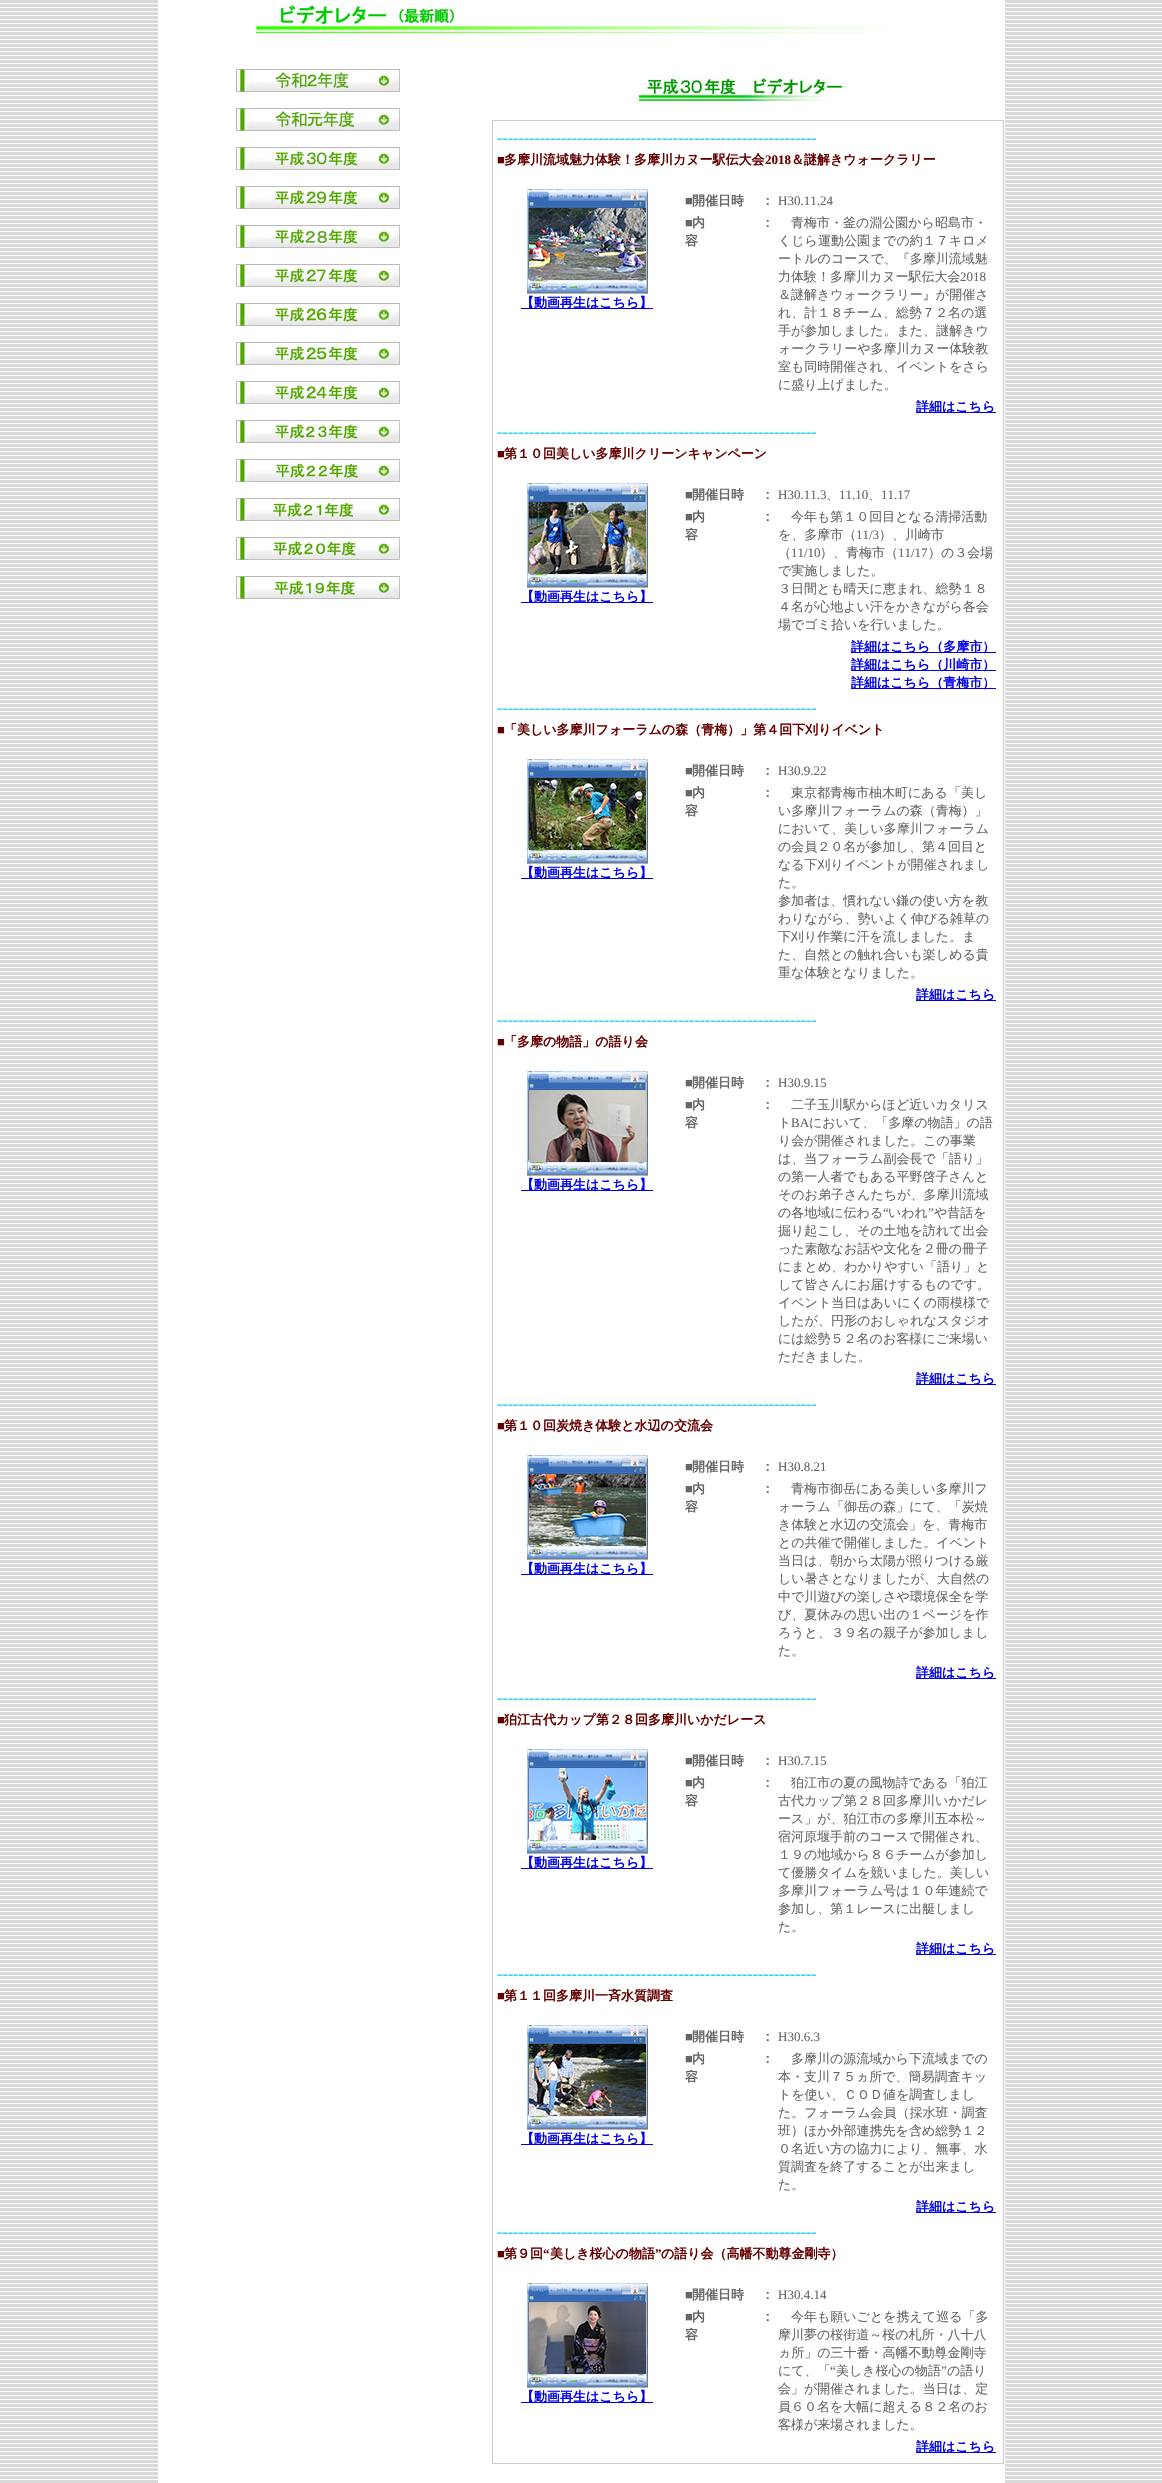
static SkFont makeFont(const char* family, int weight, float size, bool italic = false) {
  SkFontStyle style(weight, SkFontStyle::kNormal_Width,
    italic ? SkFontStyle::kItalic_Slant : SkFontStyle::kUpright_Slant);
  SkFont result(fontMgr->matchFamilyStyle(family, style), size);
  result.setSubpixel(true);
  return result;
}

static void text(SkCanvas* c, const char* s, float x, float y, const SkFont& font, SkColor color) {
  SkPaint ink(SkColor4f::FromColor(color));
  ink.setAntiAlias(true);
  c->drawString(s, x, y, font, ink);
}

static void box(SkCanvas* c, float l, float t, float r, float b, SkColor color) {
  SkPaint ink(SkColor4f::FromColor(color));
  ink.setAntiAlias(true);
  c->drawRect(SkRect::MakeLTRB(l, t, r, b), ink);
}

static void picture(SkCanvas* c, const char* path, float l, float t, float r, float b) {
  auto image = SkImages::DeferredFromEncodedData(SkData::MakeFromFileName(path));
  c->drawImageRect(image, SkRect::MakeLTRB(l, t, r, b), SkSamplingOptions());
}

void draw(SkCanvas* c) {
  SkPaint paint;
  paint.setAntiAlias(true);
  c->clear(0xffffffff);
  picture(c, "img_01.png", 0, 0, 1162, 2483);
  box(c, 158, 0, 1005, 2483, 0xffffffff);
  picture(c, "img_02.png", 256, 3, 888, 34);
  picture(c, "img_03.png", 236, 69, 400, 92);
  picture(c, "img_04.png", 236, 108, 400, 131);
  picture(c, "img_05.png", 236, 147, 400, 170);
  picture(c, "img_06.png", 236, 186, 400, 209);
  picture(c, "img_07.png", 236, 225, 400, 248);
  picture(c, "img_08.png", 236, 264, 400, 287);
  picture(c, "img_09.png", 236, 303, 400, 326);
  picture(c, "img_10.png", 236, 342, 400, 365);
  picture(c, "img_11.png", 236, 381, 400, 404);
  picture(c, "img_12.png", 236, 420, 400, 443);
  picture(c, "img_13.png", 236, 459, 400, 482);
  picture(c, "img_14.png", 236, 498, 400, 521);
  picture(c, "img_15.png", 236, 537, 400, 560);
  picture(c, "img_16.png", 236, 576, 400, 599);
  picture(c, "img_17.png", 639, 75, 847, 107);
  box(c, 492, 120, 1004, 2464, 0xffcccccc);
  box(c, 493, 121, 1003, 2463, 0xffffffff);
  SkFont face1 = makeFont("Liberation Serif", 400, 16);
  text(c, "------------------------------------------------------------", 497, 143, face1, 0xff0accf5);
  SkFont face2 = makeFont("Liberation Serif", 700, 13);
  text(c, "■", 497, 164, face2, 0xff660000);
  SkFont face3 = makeFont("WenQuanYi Zen Hei", 700, 13);
  text(c, "多摩川流域魅力体験！多摩川カヌー駅伝大会", 504, 164, face3, 0xff660000);
  text(c, "2018", 765, 164, face2, 0xff660000);
  text(c, "＆謎解きウォークラリー", 791, 164, face3, 0xff660000);
  picture(c, "img_18.png", 527, 189, 648, 294);
  box(c, 521, 308, 653, 309, 0xff0000ee);
  text(c, "【動画再生はこちら】", 521, 307, face3, 0xff0000ee);
  text(c, "■", 685, 205, face2, 0xff666666);
  text(c, "開催日時", 692, 205, face3, 0xff666666);
  text(c, "：", 761, 205, face3, 0xff666666);
  SkFont face4 = makeFont("Liberation Serif", 400, 13);
  text(c, "H30.11.24", 778, 205, face4, 0xff666666);
  text(c, "■", 685, 227, face2, 0xff666666);
  text(c, "内", 692, 227, face3, 0xff666666);
  text(c, "容", 685, 245, face3, 0xff666666);
  text(c, "：", 761, 227, face3, 0xff666666);
  SkFont face5 = makeFont("WenQuanYi Zen Hei", 500, 13);
  text(c, "青梅市・釜の淵公園から昭島市・", 791, 227, face5, 0xff666666);
  text(c, "くじら運動公園までの約１７キロメ", 778, 245, face5, 0xff666666);
  text(c, "ートルのコースで、『多摩川流域魅", 778, 263, face5, 0xff666666);
  text(c, "力体験！多摩川カヌー駅伝大会", 778, 281, face5, 0xff666666);
  text(c, "2018", 960, 281, face4, 0xff666666);
  text(c, "＆謎解きウォークラリー』が開催さ", 778, 299, face5, 0xff666666);
  text(c, "れ、計１８チーム、総勢７２名の選", 778, 317, face5, 0xff666666);
  text(c, "手が参加しました。また、謎解きウ", 778, 335, face5, 0xff666666);
  text(c, "ォークラリーや多摩川カヌー体験教", 778, 353, face5, 0xff666666);
  text(c, "室も同時開催され、イベントをさら", 778, 371, face5, 0xff666666);
  text(c, "に盛り上げました。", 778, 389, face5, 0xff666666);
  box(c, 916, 412, 996, 413, 0xff0000ee);
  text(c, "詳細はこちら", 916, 411, face3, 0xff0000ee);
  text(c, "------------------------------------------------------------", 497, 437, face1, 0xff0accf5);
  text(c, "■", 497, 458, face2, 0xff660000);
  text(c, "第１０回美しい多摩川クリーンキャンペーン", 504, 458, face3, 0xff660000);
  picture(c, "img_19.png", 527, 483, 648, 588);
  box(c, 521, 602, 653, 603, 0xff0000ee);
  text(c, "【動画再生はこちら】", 521, 601, face3, 0xff0000ee);
  text(c, "■", 685, 499, face2, 0xff666666);
  text(c, "開催日時", 692, 499, face3, 0xff666666);
  text(c, "：", 761, 499, face3, 0xff666666);
  text(c, "H30.11.3", 778, 499, face4, 0xff666666);
  text(c, "、", 826, 499, face5, 0xff666666);
  text(c, "11.10", 839, 499, face4, 0xff666666);
  text(c, "、", 868, 499, face5, 0xff666666);
  text(c, "11.17", 881, 499, face4, 0xff666666);
  text(c, "■", 685, 521, face2, 0xff666666);
  text(c, "内", 692, 521, face3, 0xff666666);
  text(c, "容", 685, 539, face3, 0xff666666);
  text(c, "：", 761, 521, face3, 0xff666666);
  text(c, "今年も第１０回目となる清掃活動", 791, 521, face5, 0xff666666);
  text(c, "を、多摩市（", 778, 539, face5, 0xff666666);
  text(c, "11/3", 856, 539, face4, 0xff666666);
  text(c, "）、川崎市", 879, 539, face5, 0xff666666);
  text(c, "（", 778, 557, face5, 0xff666666);
  text(c, "11/10", 791, 557, face4, 0xff666666);
  text(c, "）、青梅市（", 820, 557, face5, 0xff666666);
  text(c, "11/17", 898, 557, face4, 0xff666666);
  text(c, "）の３会場", 928, 557, face5, 0xff666666);
  text(c, "で実施しました。", 778, 575, face5, 0xff666666);
  text(c, "３日間とも晴天に恵まれ、総勢１８", 778, 593, face5, 0xff666666);
  text(c, "４名が心地よい汗をかきながら各会", 778, 611, face5, 0xff666666);
  text(c, "場でゴミ拾いを行いました。", 778, 629, face5, 0xff666666);
  box(c, 851, 652, 996, 653, 0xff0000ee);
  text(c, "詳細はこちら（多摩市）", 851, 651, face3, 0xff0000ee);
  box(c, 851, 670, 996, 671, 0xff0000ee);
  text(c, "詳細はこちら（川崎市）", 851, 669, face3, 0xff0000ee);
  box(c, 851, 688, 996, 689, 0xff0000ee);
  text(c, "詳細はこちら（青梅市）", 851, 687, face3, 0xff0000ee);
  text(c, "------------------------------------------------------------", 497, 713, face1, 0xff0accf5);
  text(c, "■", 497, 734, face2, 0xff660000);
  text(c, "「美しい多摩川フォーラムの森（青梅）」第４回下刈りイベント", 504, 734, face3, 0xff660000);
  picture(c, "img_20.png", 527, 759, 648, 864);
  box(c, 521, 878, 653, 879, 0xff0000ee);
  text(c, "【動画再生はこちら】", 521, 877, face3, 0xff0000ee);
  text(c, "■", 685, 775, face2, 0xff666666);
  text(c, "開催日時", 692, 775, face3, 0xff666666);
  text(c, "：", 761, 775, face3, 0xff666666);
  text(c, "H30.9.22", 778, 775, face4, 0xff666666);
  text(c, "■", 685, 797, face2, 0xff666666);
  text(c, "内", 692, 797, face3, 0xff666666);
  text(c, "容", 685, 815, face3, 0xff666666);
  text(c, "：", 761, 797, face3, 0xff666666);
  text(c, "東京都青梅市柚木町にある「美し", 791, 797, face5, 0xff666666);
  text(c, "い多摩川フォーラムの森（青梅）」", 778, 815, face5, 0xff666666);
  text(c, "において、美しい多摩川フォーラム", 778, 833, face5, 0xff666666);
  text(c, "の会員２０名が参加し、第４回目と", 778, 851, face5, 0xff666666);
  text(c, "なる下刈りイベントが開催されまし", 778, 869, face5, 0xff666666);
  text(c, "た。", 778, 887, face5, 0xff666666);
  text(c, "参加者は、慣れない鎌の使い方を教", 778, 905, face5, 0xff666666);
  text(c, "わりながら、勢いよく伸びる雑草の", 778, 923, face5, 0xff666666);
  text(c, "下刈り作業に汗を流しました。ま", 778, 941, face5, 0xff666666);
  text(c, "た、自然との触れ合いも楽しめる貴", 778, 959, face5, 0xff666666);
  text(c, "重な体験となりました。", 778, 977, face5, 0xff666666);
  box(c, 916, 1000, 996, 1001, 0xff0000ee);
  text(c, "詳細はこちら", 916, 999, face3, 0xff0000ee);
  text(c, "------------------------------------------------------------", 497, 1025, face1, 0xff0accf5);
  text(c, "■", 497, 1046, face2, 0xff660000);
  text(c, "「多摩の物語」の語り会", 504, 1046, face3, 0xff660000);
  picture(c, "img_21.png", 527, 1071, 648, 1176);
  box(c, 521, 1190, 653, 1191, 0xff0000ee);
  text(c, "【動画再生はこちら】", 521, 1189, face3, 0xff0000ee);
  text(c, "■", 685, 1087, face2, 0xff666666);
  text(c, "開催日時", 692, 1087, face3, 0xff666666);
  text(c, "：", 761, 1087, face3, 0xff666666);
  text(c, "H30.9.15", 778, 1087, face4, 0xff666666);
  text(c, "■", 685, 1109, face2, 0xff666666);
  text(c, "内", 692, 1109, face3, 0xff666666);
  text(c, "容", 685, 1127, face3, 0xff666666);
  text(c, "：", 761, 1109, face3, 0xff666666);
  text(c, "二子玉川駅からほど近いカタリス", 791, 1109, face5, 0xff666666);
  text(c, "ト", 778, 1127, face5, 0xff666666);
  text(c, "BA", 791, 1127, face4, 0xff666666);
  text(c, "において、「多摩の物語」の語", 809, 1127, face5, 0xff666666);
  text(c, "り会が開催されました。この事業", 778, 1145, face5, 0xff666666);
  text(c, "は、当フォーラム副会長で「語り」", 778, 1163, face5, 0xff666666);
  text(c, "の第一人者でもある平野啓子さんと", 778, 1181, face5, 0xff666666);
  text(c, "そのお弟子さんたちが、多摩川流域", 778, 1199, face5, 0xff666666);
  text(c, "の各地域に伝わる", 778, 1217, face5, 0xff666666);
  text(c, "“", 883, 1217, face4, 0xff666666);
  text(c, "いわれ", 888, 1217, face5, 0xff666666);
  text(c, "”", 928, 1217, face4, 0xff666666);
  text(c, "や昔話を", 934, 1217, face5, 0xff666666);
  text(c, "掘り起こし、その土地を訪れて出会", 778, 1235, face5, 0xff666666);
  text(c, "った素敵なお話や文化を２冊の冊子", 778, 1253, face5, 0xff666666);
  text(c, "にまとめ、わかりやすい「語り」と", 778, 1271, face5, 0xff666666);
  text(c, "して皆さんにお届けするものです。", 778, 1289, face5, 0xff666666);
  text(c, "イベント当日はあいにくの雨模様で", 778, 1307, face5, 0xff666666);
  text(c, "したが、円形のおしゃれなスタジオ", 778, 1325, face5, 0xff666666);
  text(c, "には総勢５２名のお客様にご来場い", 778, 1343, face5, 0xff666666);
  text(c, "ただきました。", 778, 1361, face5, 0xff666666);
  box(c, 916, 1384, 996, 1385, 0xff0000ee);
  text(c, "詳細はこちら", 916, 1383, face3, 0xff0000ee);
  text(c, "------------------------------------------------------------", 497, 1409, face1, 0xff0accf5);
  text(c, "■", 497, 1430, face2, 0xff660000);
  text(c, "第１０回炭焼き体験と水辺の交流会", 504, 1430, face3, 0xff660000);
  picture(c, "img_22.png", 527, 1455, 648, 1560);
  box(c, 521, 1574, 653, 1575, 0xff0000ee);
  text(c, "【動画再生はこちら】", 521, 1573, face3, 0xff0000ee);
  text(c, "■", 685, 1471, face2, 0xff666666);
  text(c, "開催日時", 692, 1471, face3, 0xff666666);
  text(c, "：", 761, 1471, face3, 0xff666666);
  text(c, "H30.8.21", 778, 1471, face4, 0xff666666);
  text(c, "■", 685, 1493, face2, 0xff666666);
  text(c, "内", 692, 1493, face3, 0xff666666);
  text(c, "容", 685, 1511, face3, 0xff666666);
  text(c, "：", 761, 1493, face3, 0xff666666);
  text(c, "青梅市御岳にある美しい多摩川フ", 791, 1493, face5, 0xff666666);
  text(c, "ォーラム「御岳の森」にて、「炭焼", 778, 1511, face5, 0xff666666);
  text(c, "き体験と水辺の交流会」を、青梅市", 778, 1529, face5, 0xff666666);
  text(c, "との共催で開催しました。イベント", 778, 1547, face5, 0xff666666);
  text(c, "当日は、朝から太陽が照りつける厳", 778, 1565, face5, 0xff666666);
  text(c, "しい暑さとなりましたが、大自然の", 778, 1583, face5, 0xff666666);
  text(c, "中で川遊びの楽しさや環境保全を学", 778, 1601, face5, 0xff666666);
  text(c, "び、夏休みの思い出の１ページを作", 778, 1619, face5, 0xff666666);
  text(c, "ろうと、３９名の親子が参加しまし", 778, 1637, face5, 0xff666666);
  text(c, "た。", 778, 1655, face5, 0xff666666);
  box(c, 916, 1678, 996, 1679, 0xff0000ee);
  text(c, "詳細はこちら", 916, 1677, face3, 0xff0000ee);
  text(c, "------------------------------------------------------------", 497, 1703, face1, 0xff0accf5);
  text(c, "■", 497, 1724, face2, 0xff660000);
  text(c, "狛江古代カップ第２８回多摩川いかだレース", 504, 1724, face3, 0xff660000);
  picture(c, "img_23.png", 527, 1749, 648, 1854);
  box(c, 521, 1868, 653, 1869, 0xff0000ee);
  text(c, "【動画再生はこちら】", 521, 1867, face3, 0xff0000ee);
  text(c, "■", 685, 1765, face2, 0xff666666);
  text(c, "開催日時", 692, 1765, face3, 0xff666666);
  text(c, "：", 761, 1765, face3, 0xff666666);
  text(c, "H30.7.15", 778, 1765, face4, 0xff666666);
  text(c, "■", 685, 1787, face2, 0xff666666);
  text(c, "内", 692, 1787, face3, 0xff666666);
  text(c, "容", 685, 1805, face3, 0xff666666);
  text(c, "：", 761, 1787, face3, 0xff666666);
  text(c, "狛江市の夏の風物詩である「狛江", 791, 1787, face5, 0xff666666);
  text(c, "古代カップ第２８回多摩川いかだレ", 778, 1805, face5, 0xff666666);
  text(c, "ース」が、狛江市の多摩川五本松～", 778, 1823, face5, 0xff666666);
  text(c, "宿河原堰手前のコースで開催され、", 778, 1841, face5, 0xff666666);
  text(c, "１９の地域から８６チームが参加し", 778, 1859, face5, 0xff666666);
  text(c, "て優勝タイムを競いました。美しい", 778, 1877, face5, 0xff666666);
  text(c, "多摩川フォーラム号は１０年連続で", 778, 1895, face5, 0xff666666);
  text(c, "参加し、第１レースに出艇しまし", 778, 1913, face5, 0xff666666);
  text(c, "た。", 778, 1931, face5, 0xff666666);
  box(c, 916, 1954, 996, 1955, 0xff0000ee);
  text(c, "詳細はこちら", 916, 1953, face3, 0xff0000ee);
  text(c, "------------------------------------------------------------", 497, 1979, face1, 0xff0accf5);
  text(c, "■", 497, 2000, face2, 0xff660000);
  text(c, "第１１回多摩川一斉水質調査", 504, 2000, face3, 0xff660000);
  picture(c, "img_24.png", 527, 2025, 648, 2130);
  box(c, 521, 2144, 653, 2145, 0xff0000ee);
  text(c, "【動画再生はこちら】", 521, 2143, face3, 0xff0000ee);
  text(c, "■", 685, 2041, face2, 0xff666666);
  text(c, "開催日時", 692, 2041, face3, 0xff666666);
  text(c, "：", 761, 2041, face3, 0xff666666);
  text(c, "H30.6.3", 778, 2041, face4, 0xff666666);
  text(c, "■", 685, 2063, face2, 0xff666666);
  text(c, "内", 692, 2063, face3, 0xff666666);
  text(c, "容", 685, 2081, face3, 0xff666666);
  text(c, "：", 761, 2063, face3, 0xff666666);
  text(c, "多摩川の源流域から下流域までの", 791, 2063, face5, 0xff666666);
  text(c, "本・支川７５ヵ所で、簡易調査キッ", 778, 2081, face5, 0xff666666);
  text(c, "トを使い、ＣＯＤ値を調査しまし", 778, 2099, face5, 0xff666666);
  text(c, "た。フォーラム会員（採水班・調査", 778, 2117, face5, 0xff666666);
  text(c, "班）ほか外部連携先を含め総勢１２", 778, 2135, face5, 0xff666666);
  text(c, "０名近い方の協力により、無事、水", 778, 2153, face5, 0xff666666);
  text(c, "質調査を終了することが出来まし", 778, 2171, face5, 0xff666666);
  text(c, "た。", 778, 2189, face5, 0xff666666);
  box(c, 916, 2212, 996, 2213, 0xff0000ee);
  text(c, "詳細はこちら", 916, 2211, face3, 0xff0000ee);
  text(c, "------------------------------------------------------------", 497, 2237, face1, 0xff0accf5);
  text(c, "■", 497, 2258, face2, 0xff660000);
  text(c, "第９回", 504, 2258, face3, 0xff660000);
  text(c, "“", 543, 2258, face2, 0xff660000);
  text(c, "美しき桜心の物語", 550, 2258, face3, 0xff660000);
  text(c, "”", 655, 2258, face2, 0xff660000);
  text(c, "の語り会（高幡不動尊金剛寺）", 661, 2258, face3, 0xff660000);
  picture(c, "img_25.png", 527, 2283, 648, 2388);
  box(c, 521, 2402, 653, 2403, 0xff0000ee);
  text(c, "【動画再生はこちら】", 521, 2401, face3, 0xff0000ee);
  text(c, "■", 685, 2299, face2, 0xff666666);
  text(c, "開催日時", 692, 2299, face3, 0xff666666);
  text(c, "：", 761, 2299, face3, 0xff666666);
  text(c, "H30.4.14", 778, 2299, face4, 0xff666666);
  text(c, "■", 685, 2321, face2, 0xff666666);
  text(c, "内", 692, 2321, face3, 0xff666666);
  text(c, "容", 685, 2339, face3, 0xff666666);
  text(c, "：", 761, 2321, face3, 0xff666666);
  text(c, "今年も願いごとを携えて巡る「多", 791, 2321, face5, 0xff666666);
  text(c, "摩川夢の桜街道～桜の札所・八十八", 778, 2339, face5, 0xff666666);
  text(c, "ヵ所」の三十番・高幡不動尊金剛寺", 778, 2357, face5, 0xff666666);
  text(c, "にて、「", 778, 2375, face5, 0xff666666);
  text(c, "“", 830, 2375, face4, 0xff666666);
  text(c, "美しき桜心の物語", 836, 2375, face5, 0xff666666);
  text(c, "”", 941, 2375, face4, 0xff666666);
  text(c, "の語り", 947, 2375, face5, 0xff666666);
  text(c, "会」が開催されました。当日は、定", 778, 2393, face5, 0xff666666);
  text(c, "員６０名を大幅に超える８２名のお", 778, 2411, face5, 0xff666666);
  text(c, "客様が来場されました。", 778, 2429, face5, 0xff666666);
  box(c, 916, 2452, 996, 2453, 0xff0000ee);
  text(c, "詳細はこちら", 916, 2451, face3, 0xff0000ee);
}
